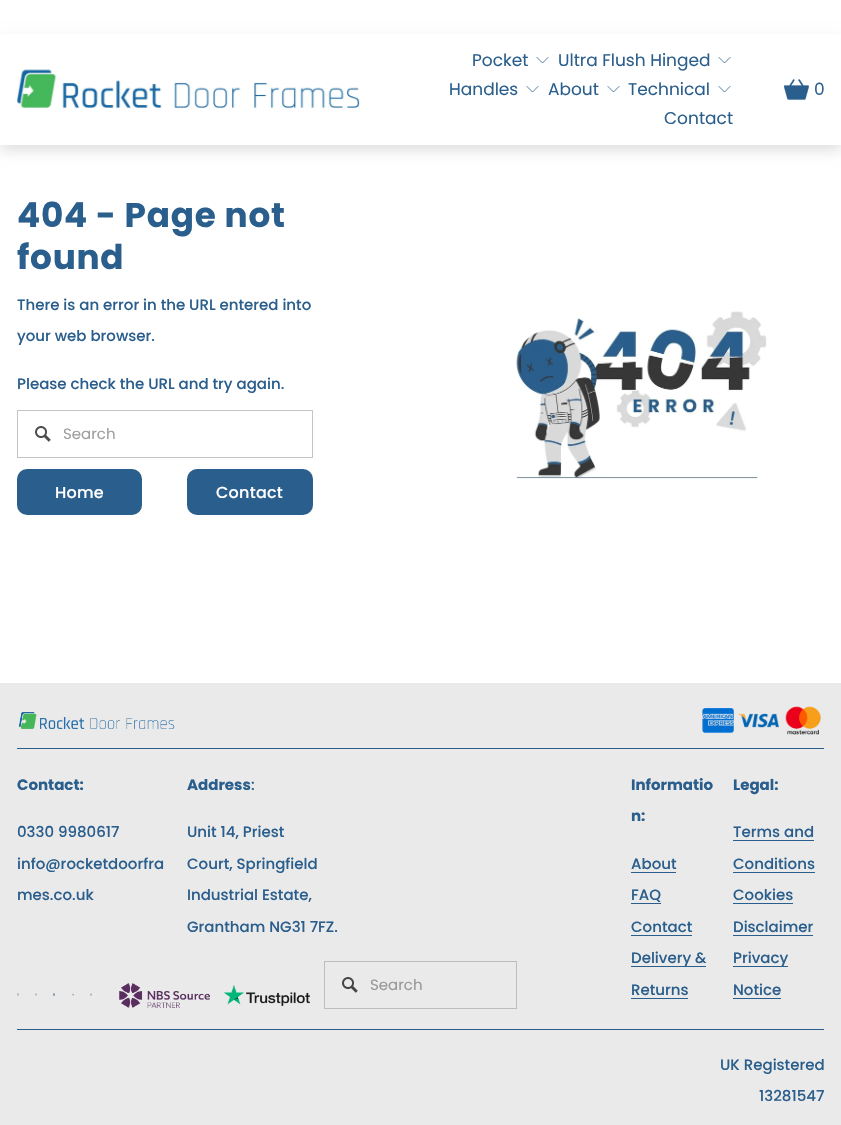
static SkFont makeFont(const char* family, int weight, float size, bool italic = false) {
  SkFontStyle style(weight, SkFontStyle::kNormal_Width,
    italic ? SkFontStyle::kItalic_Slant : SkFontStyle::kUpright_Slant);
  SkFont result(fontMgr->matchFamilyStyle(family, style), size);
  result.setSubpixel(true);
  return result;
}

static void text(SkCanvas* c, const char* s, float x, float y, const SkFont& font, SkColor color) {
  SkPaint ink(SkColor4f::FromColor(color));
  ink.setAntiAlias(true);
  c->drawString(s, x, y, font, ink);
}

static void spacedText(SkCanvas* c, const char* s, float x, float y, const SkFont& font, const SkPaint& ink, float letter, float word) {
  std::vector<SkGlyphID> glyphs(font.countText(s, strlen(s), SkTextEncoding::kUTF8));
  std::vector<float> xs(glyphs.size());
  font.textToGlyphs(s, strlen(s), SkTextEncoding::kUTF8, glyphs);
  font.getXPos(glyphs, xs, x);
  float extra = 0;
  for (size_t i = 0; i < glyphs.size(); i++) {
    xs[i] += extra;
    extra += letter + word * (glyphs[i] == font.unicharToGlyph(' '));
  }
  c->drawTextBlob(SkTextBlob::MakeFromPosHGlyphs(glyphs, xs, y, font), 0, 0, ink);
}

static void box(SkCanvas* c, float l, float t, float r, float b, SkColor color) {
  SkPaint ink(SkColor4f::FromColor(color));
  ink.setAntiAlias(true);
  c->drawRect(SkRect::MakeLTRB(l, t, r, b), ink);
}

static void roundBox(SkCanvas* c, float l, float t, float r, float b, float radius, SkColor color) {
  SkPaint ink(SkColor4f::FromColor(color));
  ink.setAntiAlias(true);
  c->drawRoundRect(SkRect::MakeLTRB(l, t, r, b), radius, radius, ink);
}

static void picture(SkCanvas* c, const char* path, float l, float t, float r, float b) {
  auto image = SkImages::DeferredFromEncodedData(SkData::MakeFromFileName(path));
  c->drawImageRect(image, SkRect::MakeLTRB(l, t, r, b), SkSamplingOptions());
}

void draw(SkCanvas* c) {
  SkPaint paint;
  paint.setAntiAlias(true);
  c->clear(0xffffffff);
  c->save();
  c->clipPath(SkPathBuilder(SkPathFillType::kEvenOdd).moveTo(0, 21).lineTo(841, 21).lineTo(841, 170).lineTo(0, 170).close().moveTo(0, 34).lineTo(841, 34).lineTo(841, 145).lineTo(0, 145).close().detach(), true);
  paint.setColor(0xffe1e1e1);
  paint.setMaskFilter(SkMaskFilter::MakeBlur(kNormal_SkBlurStyle, 6));
  c->drawRect(SkRect::MakeLTRB(0, 40, 841, 151), paint);
  paint.setMaskFilter(nullptr);
  c->restore();
  picture(c, "img_01.png", 17, 69, 360, 109);
  SkFont face1 = makeFont("Poppins", 400, 17);
  text(c, "Pocket", 472, 66, face1, 0xff2a5e8c);
  paint.setStyle(SkPaint::kStroke_Style);
  paint.setStrokeWidth(0.8f);
  paint.setStrokeCap(SkPaint::kSquare_Cap);
  paint.setColor(0xff2a5e8c);
  c->drawPath(SkPathBuilder().moveTo(548, 57.5f).lineTo(542.5f, 63).lineTo(537, 57.5f).detach(), paint);
  text(c, "Ultra Flush Hinged", 558, 66, face1, 0xff2a5e8c);
  c->drawPath(SkPathBuilder().moveTo(730, 57.5f).lineTo(724.5f, 63).lineTo(719, 57.5f).detach(), paint);
  text(c, "Handles", 449, 95, face1, 0xff2a5e8c);
  c->drawPath(SkPathBuilder().moveTo(538, 86.5f).lineTo(532.5f, 92).lineTo(527, 86.5f).detach(), paint);
  text(c, "About", 548, 95, face1, 0xff2a5e8c);
  c->drawPath(SkPathBuilder().moveTo(619, 86.5f).lineTo(613.5f, 92).lineTo(608, 86.5f).detach(), paint);
  text(c, "Technical", 628, 95, face1, 0xff2a5e8c);
  c->drawPath(SkPathBuilder().moveTo(730, 86.5f).lineTo(724.5f, 92).lineTo(719, 86.5f).detach(), paint);
  text(c, "Contact", 664, 124, face1, 0xff2a5e8c);
  picture(c, "img_02.png", 784, 79, 809, 100);
  text(c, "0", 814, 95, face1, 0xff2a5e8c);
  SkFont face2 = makeFont("Poppins", 700, 34.25f);
  paint.setStyle(SkPaint::kFill_Style);
  spacedText(c, "404 - Page not", 17, 227, face2, paint, 0.75f, 0);
  spacedText(c, "found", 17, 269, face2, paint, 0.75f, 0);
  SkFont face3 = makeFont("Poppins", 500, 15);
  text(c, "There is an error in the URL entered into", 17, 310, face3, 0xff2a5e8c);
  text(c, "your web browser.", 17, 341, face3, 0xff2a5e8c);
  text(c, "Please check the URL and try again.", 17, 389, face3, 0xff2a5e8c);
  picture(c, "img_03.png", 514, 311, 767, 479);
  picture(c, "img_04.png", 35, 426, 51, 442);
  paint.setStyle(SkPaint::kStroke_Style);
  paint.setStrokeWidth(1);
  paint.setStrokeCap(SkPaint::kButt_Cap);
  paint.setColor(0xffc4c4c4);
  c->drawRect(SkRect::MakeLTRB(17.5f, 410.5f, 312.5f, 457.5f), paint);
  SkFont face4 = makeFont("Poppins", 400, 15);
  text(c, "Search", 63, 439, face4, 0xff9e9e9e);
  roundBox(c, 17, 469, 142, 515, 10, 0xff2a5e8c);
  SkFont face5 = makeFont("Poppins", 500, 16);
  paint.setStyle(SkPaint::kFill_Style);
  paint.setColor(0xffffffff);
  spacedText(c, "Home", 55, 498, face5, paint, 0.25f, 0);
  roundBox(c, 187, 469, 313, 515, 10, 0xff2a5e8c);
  spacedText(c, "Contact", 216, 498, face5, paint, 0.25f, 0);
  box(c, 0, 683, 841, 1125, 0xffeaeaea);
  picture(c, "img_05.png", 18, 712, 175, 729);
  picture(c, "img_06.png", 702, 706, 821, 735);
  box(c, 17, 748, 824, 749, 0xff2a5e8c);
  SkFont face6 = makeFont("Poppins", 700, 15);
  text(c, "Contact:", 17, 790, face6, 0xff2a5e8c);
  text(c, "0330 9980617", 17, 837, face3, 0xff2a5e8c);
  text(c, "info@rocketdoorfra", 17, 869, face3, 0xff2a5e8c);
  text(c, "mes.co.uk", 17, 900, face3, 0xff2a5e8c);
  text(c, "Address", 187, 790, face6, 0xff2a5e8c);
  text(c, ":", 251, 790, face3, 0xff2a5e8c);
  text(c, "Unit 14, Priest", 187, 837, face3, 0xff2a5e8c);
  text(c, "Court, Springfield", 187, 869, face3, 0xff2a5e8c);
  text(c, "Industrial Estate,", 187, 900, face3, 0xff2a5e8c);
  text(c, "Grantham NG31 7FZ.", 187, 932, face3, 0xff2a5e8c);
  text(c, "Informatio", 631, 790, face6, 0xff2a5e8c);
  text(c, "n:", 631, 821, face6, 0xff2a5e8c);
  text(c, "About", 631, 869, face3, 0xff2a5e8c);
  box(c, 631, 872, 676, 873, 0xff2a5e8c);
  text(c, "FAQ", 631, 900, face3, 0xff2a5e8c);
  box(c, 631, 903, 661, 904, 0xff2a5e8c);
  text(c, "Contact", 631, 932, face3, 0xff2a5e8c);
  box(c, 631, 935, 692, 936, 0xff2a5e8c);
  box(c, 631, 966, 706, 967, 0xff2a5e8c);
  text(c, "Delivery &", 631, 963, face3, 0xff2a5e8c);
  text(c, "Returns", 631, 995, face3, 0xff2a5e8c);
  box(c, 631, 998, 688, 999, 0xff2a5e8c);
  text(c, "Legal:", 733, 790, face6, 0xff2a5e8c);
  text(c, "Terms and", 733, 837, face3, 0xff2a5e8c);
  box(c, 733, 840, 814, 841, 0xff2a5e8c);
  text(c, "Conditions", 733, 869, face3, 0xff2a5e8c);
  box(c, 733, 872, 815, 873, 0xff2a5e8c);
  text(c, "Cookies", 733, 900, face3, 0xff2a5e8c);
  box(c, 733, 903, 793, 904, 0xff2a5e8c);
  text(c, "Disclaimer", 733, 932, face3, 0xff2a5e8c);
  box(c, 733, 935, 813, 936, 0xff2a5e8c);
  box(c, 733, 966, 788, 967, 0xff2a5e8c);
  text(c, "Privacy", 733, 963, face3, 0xff2a5e8c);
  text(c, "Notice", 733, 995, face3, 0xff2a5e8c);
  box(c, 733, 998, 781, 999, 0xff2a5e8c);
  picture(c, "img_07.png", 17, 993, 19, 996);
  picture(c, "img_08.png", 35, 993, 37, 996);
  picture(c, "img_09.png", 53, 993, 55, 996);
  picture(c, "img_10.png", 72, 993, 74, 996);
  picture(c, "img_11.png", 90, 993, 92, 996);
  picture(c, "img_12.png", 119, 983, 210, 1008);
  picture(c, "img_13.png", 223, 985, 310, 1006);
  picture(c, "img_14.png", 342, 977, 358, 993);
  paint.setStyle(SkPaint::kStroke_Style);
  paint.setColor(0xffbdbdbd);
  c->drawRect(SkRect::MakeLTRB(324.5f, 961.5f, 516.5f, 1008.5f), paint);
  text(c, "Search", 370, 990, face4, 0xff989898);
  box(c, 17, 1029, 824, 1030, 0xff2a5e8c);
  text(c, "UK Registered", 720, 1070, face3, 0xff2a5e8c);
  text(c, "13281547", 759, 1101, face3, 0xff2a5e8c);
}
